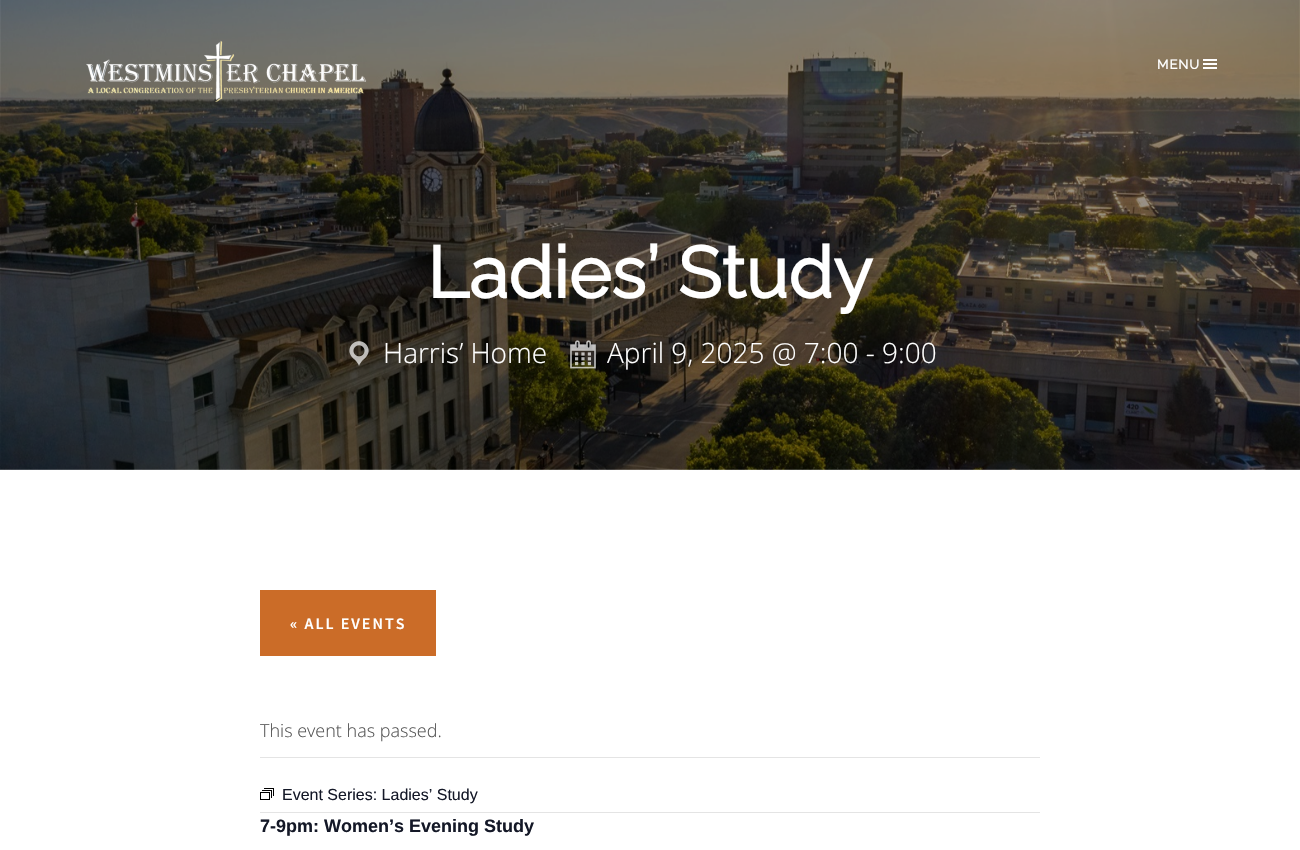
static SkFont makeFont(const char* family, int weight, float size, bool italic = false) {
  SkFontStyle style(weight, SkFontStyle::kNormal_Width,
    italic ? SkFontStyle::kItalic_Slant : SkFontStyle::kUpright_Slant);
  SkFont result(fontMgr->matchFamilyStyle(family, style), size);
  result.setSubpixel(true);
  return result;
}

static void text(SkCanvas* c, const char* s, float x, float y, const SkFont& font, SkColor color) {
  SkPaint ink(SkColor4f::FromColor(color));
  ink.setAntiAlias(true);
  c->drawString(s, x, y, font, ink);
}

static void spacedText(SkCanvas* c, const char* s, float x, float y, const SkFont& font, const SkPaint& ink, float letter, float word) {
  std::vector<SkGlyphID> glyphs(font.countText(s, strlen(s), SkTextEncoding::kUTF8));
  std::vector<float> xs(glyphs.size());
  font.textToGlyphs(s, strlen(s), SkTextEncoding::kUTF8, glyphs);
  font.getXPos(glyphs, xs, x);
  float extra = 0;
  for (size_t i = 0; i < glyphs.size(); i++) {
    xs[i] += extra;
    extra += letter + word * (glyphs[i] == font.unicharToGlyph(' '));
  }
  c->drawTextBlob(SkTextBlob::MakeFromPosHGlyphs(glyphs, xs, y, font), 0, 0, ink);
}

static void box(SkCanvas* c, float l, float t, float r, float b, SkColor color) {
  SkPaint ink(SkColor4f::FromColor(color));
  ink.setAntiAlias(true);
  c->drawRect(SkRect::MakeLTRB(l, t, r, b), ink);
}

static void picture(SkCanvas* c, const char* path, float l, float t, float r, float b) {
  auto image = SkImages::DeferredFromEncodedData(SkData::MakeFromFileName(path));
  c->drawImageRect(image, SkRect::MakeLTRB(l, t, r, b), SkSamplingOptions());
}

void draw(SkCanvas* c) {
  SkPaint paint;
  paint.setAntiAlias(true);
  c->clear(0xffffffff);
  picture(c, "img_03.png", 0, 0, 1300, 470);
  picture(c, "img_01.png", 86, 40, 367, 102);
  SkFont face1 = makeFont("Raleway", 700, 13);
  paint.setColor(0xffffffff);
  spacedText(c, "MENU", 1157, 69, face1, paint, 1, 0);
  picture(c, "img_02.png", 1203, 59, 1217, 69);
  SkFont face2 = makeFont("Raleway", 700, 72);
  text(c, "Ladies’ Study", 427, 298, face2, 0xffffffff);
  picture(c, "img_04.png", 349, 341, 369, 366);
  SkFont face3 = makeFont("Open Sans", 300, 28);
  text(c, "Harris’ Home", 383, 363, face3, 0xffffffff);
  picture(c, "img_05.png", 570, 340, 596, 369);
  text(c, "April 9, 2025 @ 7:00 - 9:00", 607, 363, face3, 0xffffffff);
  box(c, 260, 590, 436, 656, 0xffcb6c28);
  SkFont face4 = makeFont("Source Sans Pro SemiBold", 600, 16);
  spacedText(c, "« ALL EVENTS", 290, 629, face4, paint, 2, 0);
  box(c, 260, 757, 1040, 758, 0xffe4e4e4);
  SkFont face5 = makeFont("Open Sans", 300, 18);
  text(c, "This event has passed.", 260, 737, face5, 0xff555555);
  picture(c, "img_06.png", 260, 788, 274, 800);
  SkFont face6 = makeFont("Liberation Sans", 400, 16);
  text(c, "Event Series: Ladies’ Study", 282, 800, face6, 0xff141827);
  box(c, 260, 812, 1040, 813, 0xffe4e4e4);
  SkFont face7 = makeFont("Liberation Sans", 700, 18);
  text(c, "7-9pm: Women’s Evening Study", 260, 832, face7, 0xff141827);
}
